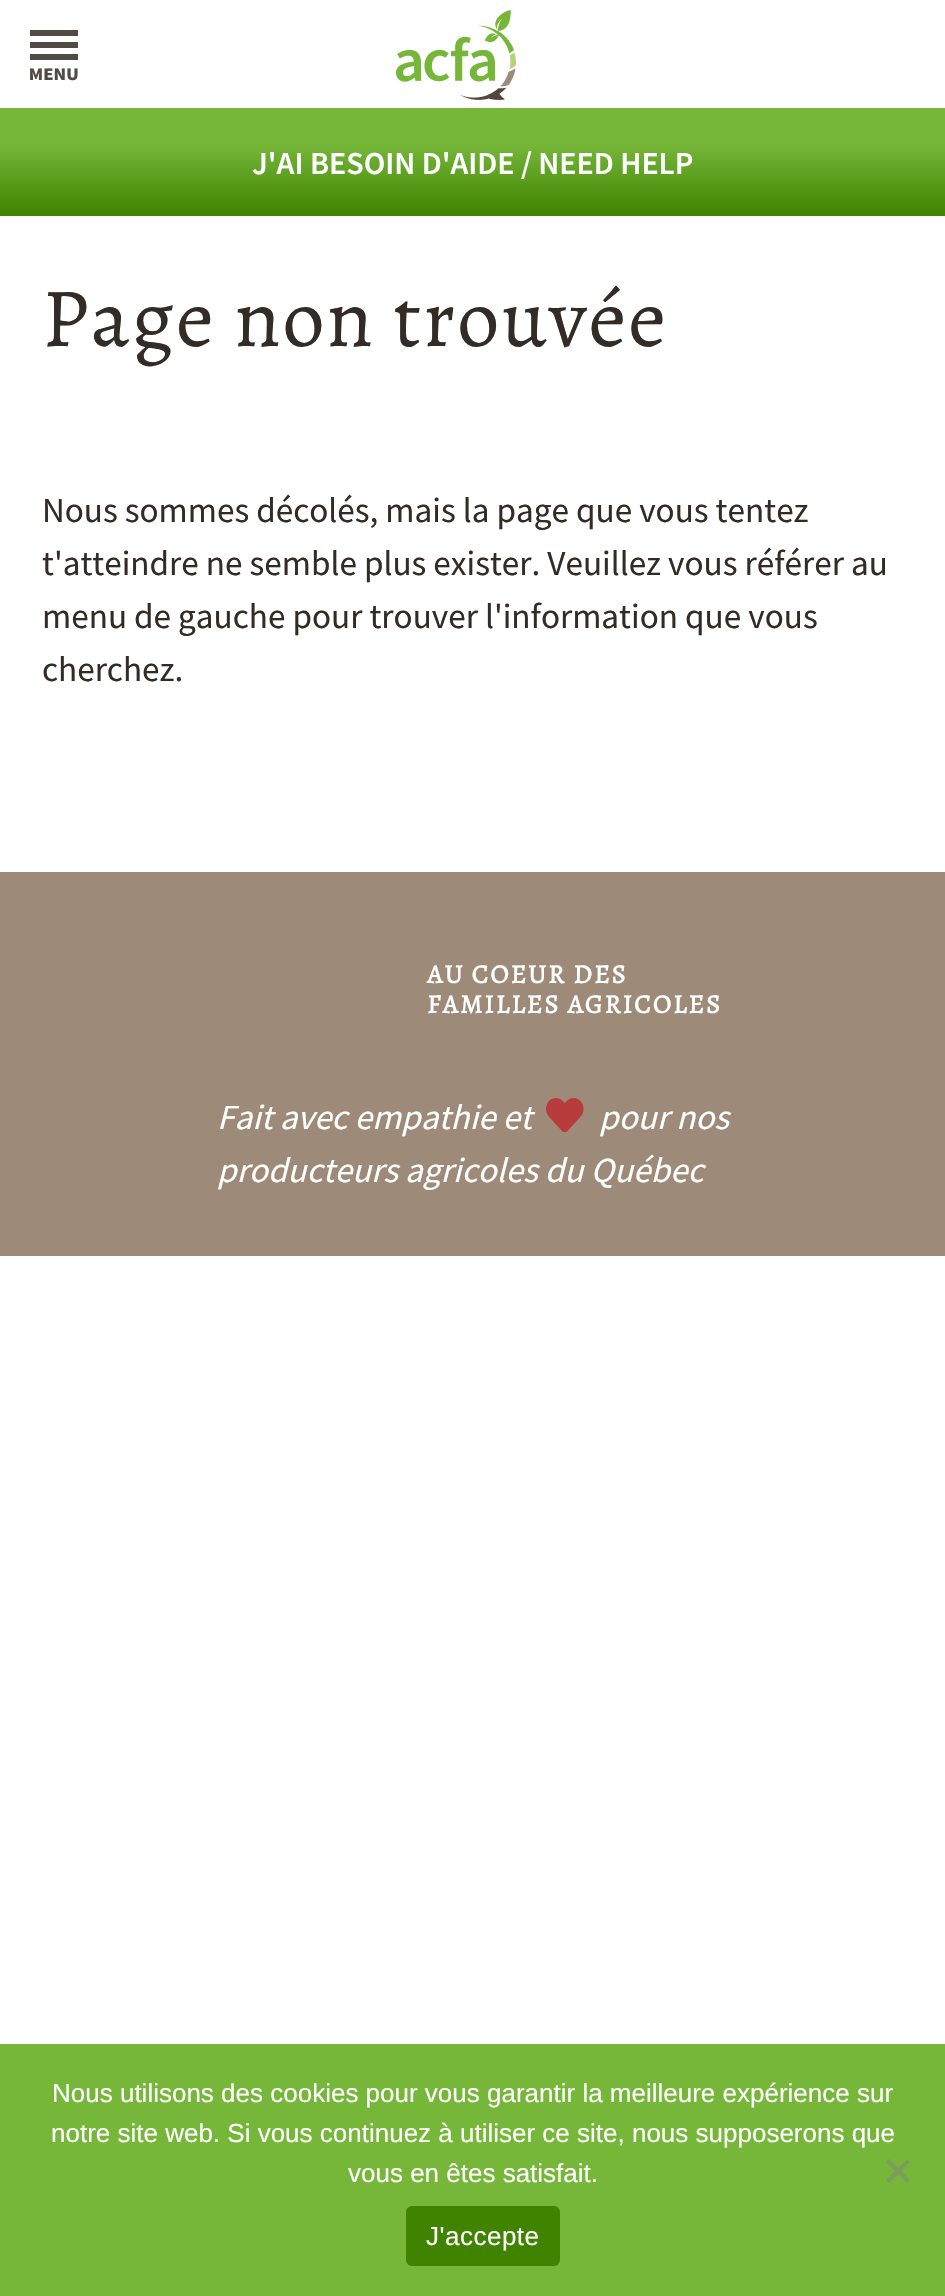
static SkFont makeFont(const char* family, int weight, float size, bool italic = false) {
  SkFontStyle style(weight, SkFontStyle::kNormal_Width,
    italic ? SkFontStyle::kItalic_Slant : SkFontStyle::kUpright_Slant);
  SkFont result(fontMgr->matchFamilyStyle(family, style), size);
  result.setSubpixel(true);
  return result;
}

static void text(SkCanvas* c, const char* s, float x, float y, const SkFont& font, SkColor color) {
  SkPaint ink(SkColor4f::FromColor(color));
  ink.setAntiAlias(true);
  c->drawString(s, x, y, font, ink);
}

static void spacedText(SkCanvas* c, const char* s, float x, float y, const SkFont& font, const SkPaint& ink, float letter, float word) {
  std::vector<SkGlyphID> glyphs(font.countText(s, strlen(s), SkTextEncoding::kUTF8));
  std::vector<float> xs(glyphs.size());
  font.textToGlyphs(s, strlen(s), SkTextEncoding::kUTF8, glyphs);
  font.getXPos(glyphs, xs, x);
  float extra = 0;
  for (size_t i = 0; i < glyphs.size(); i++) {
    xs[i] += extra;
    extra += letter + word * (glyphs[i] == font.unicharToGlyph(' '));
  }
  c->drawTextBlob(SkTextBlob::MakeFromPosHGlyphs(glyphs, xs, y, font), 0, 0, ink);
}

static void box(SkCanvas* c, float l, float t, float r, float b, SkColor color) {
  SkPaint ink(SkColor4f::FromColor(color));
  ink.setAntiAlias(true);
  c->drawRect(SkRect::MakeLTRB(l, t, r, b), ink);
}

static void roundBox(SkCanvas* c, float l, float t, float r, float b, float radius, SkColor color) {
  SkPaint ink(SkColor4f::FromColor(color));
  ink.setAntiAlias(true);
  c->drawRoundRect(SkRect::MakeLTRB(l, t, r, b), radius, radius, ink);
}

static void picture(SkCanvas* c, const char* path, float l, float t, float r, float b) {
  auto image = SkImages::DeferredFromEncodedData(SkData::MakeFromFileName(path));
  c->drawImageRect(image, SkRect::MakeLTRB(l, t, r, b), SkSamplingOptions());
}

void draw(SkCanvas* c) {
  SkPaint paint;
  paint.setAntiAlias(true);
  c->clear(0xffffffff);
  box(c, 30, 42, 78, 48, 0xff514b45);
  box(c, 30, 30, 78, 36, 0xff514b45);
  box(c, 30, 54, 78, 60, 0xff514b45);
  picture(c, "img_01.png", 30, 68, 78, 81);
  picture(c, "img_02.png", 396, 10, 516, 100);
  {
    const SkColor colors[] = {0xff76b73a, 0xff3f8300};
    const float stops[] = {0.33f, 1};
    const SkPoint ends[] = {{473, 108}, {473, 216}};
    paint.setShader(SkGradientShader::MakeLinear(ends, colors, stops, 2, SkTileMode::kClamp));
    paint.setAlpha(255);
  }
  c->drawRect(SkRect::MakeLTRB(0, 108, 945, 216), paint);
  SkFont face1 = makeFont("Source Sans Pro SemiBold", 600, 32);
  text(c, "J'AI BESOIN D'AIDE / NEED HELP", 252, 174, face1, 0xffffffff);
  SkFont face2 = makeFont("Alegreya", 400, 84.25f);
  paint.setShader(nullptr);
  paint.setColor(0xff332b25);
  spacedText(c, "Page non trouvée", 42, 346, face2, paint, 2, 0);
  SkFont face3 = makeFont("Source Sans Pro", 400, 35.2f);
  text(c, "Nous sommes décolés, mais la page que vous tentez", 42, 522, face3, 0xff332b25);
  text(c, "t'atteindre ne semble plus exister. Veuillez vous référer au", 42, 575, face3, 0xff332b25);
  text(c, "menu de gauche pour trouver l'information que vous", 42, 628, face3, 0xff332b25);
  text(c, "cherchez.", 42, 681, face3, 0xff332b25);
  box(c, 0, 872, 945, 1256, 0xff9e8a78);
  SkFont face4 = makeFont("Alegreya", 700, 26.4f);
  paint.setColor(0xffffffff);
  spacedText(c, "AU COEUR DES", 427, 983, face4, paint, 2, 0);
  spacedText(c, "FAMILLES AGRICOLES", 427, 1013, face4, paint, 2, 0);
  SkFont face5 = makeFont("Source Sans Pro", 400, 35.2f, true);
  text(c, "Fait avec empathie et", 217, 1129, face5, 0xffffffff);
  picture(c, "img_03.png", 546, 1098, 584, 1132);
  text(c, "pour nos", 599, 1129, face5, 0xffffffff);
  text(c, "producteurs agricoles du Québec", 217, 1182, face5, 0xffffffff);
  box(c, 0, 2044, 945, 2296, 0xff76b73a);
  SkFont face6 = makeFont("Liberation Sans", 400, 26);
  text(c, "Nous utilisons des cookies pour vous garantir la meilleure expérience sur", 52, 2102, face6, 0xffffffff);
  text(c, "notre site web. Si vous continuez à utiliser ce site, nous supposerons que", 51, 2142, face6, 0xffffffff);
  text(c, "vous en êtes satisfait.", 348, 2182, face6, 0xffffffff);
  paint.setColor(0xff7b9c5d);
  c->drawPath(SkPathBuilder().moveTo(907, 2159).lineTo(910, 2162).lineTo(889, 2183).lineTo(886, 2180).close().detach(), paint);
  c->drawPath(SkPathBuilder().moveTo(886, 2162).lineTo(889, 2159).lineTo(910, 2180).lineTo(907, 2183).close().detach(), paint);
  roundBox(c, 406, 2206, 560, 2266, 6, 0xff408301);
  paint.setColor(0xffffffff);
  spacedText(c, "J'accepte", 426, 2245, face6, paint, 0.5f, 0);
}
